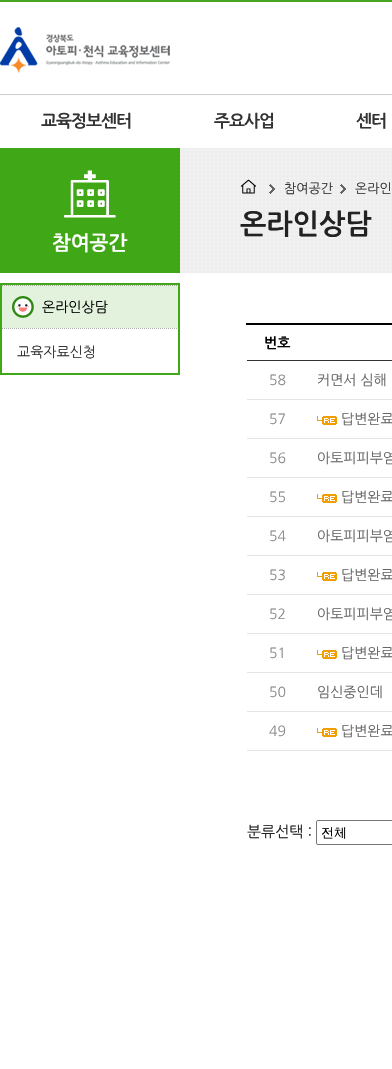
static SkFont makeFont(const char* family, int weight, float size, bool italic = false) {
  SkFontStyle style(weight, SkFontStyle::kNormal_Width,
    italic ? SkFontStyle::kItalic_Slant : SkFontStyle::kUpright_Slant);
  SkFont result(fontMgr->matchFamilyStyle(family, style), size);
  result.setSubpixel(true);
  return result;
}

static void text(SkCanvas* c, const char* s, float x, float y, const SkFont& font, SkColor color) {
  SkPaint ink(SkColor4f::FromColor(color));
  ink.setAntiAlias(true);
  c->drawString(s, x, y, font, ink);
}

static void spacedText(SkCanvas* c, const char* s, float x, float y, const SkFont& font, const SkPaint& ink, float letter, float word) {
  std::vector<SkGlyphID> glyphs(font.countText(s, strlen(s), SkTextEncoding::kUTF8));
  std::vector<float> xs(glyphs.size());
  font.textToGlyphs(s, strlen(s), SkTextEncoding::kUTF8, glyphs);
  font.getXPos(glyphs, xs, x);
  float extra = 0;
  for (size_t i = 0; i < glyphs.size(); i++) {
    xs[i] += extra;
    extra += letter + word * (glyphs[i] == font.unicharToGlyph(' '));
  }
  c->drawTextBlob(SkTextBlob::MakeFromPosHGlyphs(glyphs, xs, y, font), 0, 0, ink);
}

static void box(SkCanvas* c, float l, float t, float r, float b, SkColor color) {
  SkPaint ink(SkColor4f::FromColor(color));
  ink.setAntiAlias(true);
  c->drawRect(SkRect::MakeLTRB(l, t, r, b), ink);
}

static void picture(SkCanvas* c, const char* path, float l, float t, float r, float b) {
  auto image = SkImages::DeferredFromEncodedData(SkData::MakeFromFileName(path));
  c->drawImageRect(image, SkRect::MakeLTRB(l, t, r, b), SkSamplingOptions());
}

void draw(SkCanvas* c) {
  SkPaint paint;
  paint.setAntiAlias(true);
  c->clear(0xffffffff);
  box(c, 0, 0, 392, 2, 0xff49a625);
  picture(c, "img_01.png", 0, 27, 170, 73);
  box(c, 0, 94, 392, 95, 0xffcccccc);
  SkFont face1 = makeFont("NanumGothic", 700, 17);
  paint.setColor(0xff333333);
  spacedText(c, "교육정보센터", 41, 127, face1, paint, -1, 0);
  spacedText(c, "주요사업", 214, 127, face1, paint, -1, 0);
  spacedText(c, "센터", 356, 127, face1, paint, -1, 0);
  picture(c, "img_02.png", 180, 148, 392, 273);
  picture(c, "img_03.png", 240, 179, 256, 194);
  picture(c, "img_04.png", 269, 184, 275, 194);
  SkFont face2 = makeFont("NanumGothic", 400, 13);
  text(c, "참여공간", 284, 193, face2, 0xff333333);
  picture(c, "img_05.png", 340, 184, 346, 194);
  text(c, "온라인", 355, 193, face2, 0xff333333);
  SkFont face3 = makeFont("NanumGothic", 700, 28);
  text(c, "온라인상담", 240, 234, face3, 0xff222222);
  box(c, 0, 148, 180, 273, 0xff40a817);
  picture(c, "img_06.png", 64, 170, 116, 218);
  SkFont face4 = makeFont("NanumGothic", 700, 20);
  text(c, "참여공간", 52, 250, face4, 0xffffffff);
  paint.setStyle(SkPaint::kStroke_Style);
  paint.setStrokeWidth(2);
  paint.setColor(0xff40a817);
  c->drawRect(SkRect::MakeLTRB(1, 284, 179, 374), paint);
  box(c, 2, 285, 178, 328, 0xffe3f2dc);
  picture(c, "img_07.png", 12, 296, 34, 318);
  paint.setStrokeWidth(1);
  paint.setColor(0xffaaaaaa);
  paint.setPathEffect(SkDashPathEffect::Make({{1, 1}}, 0));
  c->drawPath(SkPathBuilder().moveTo(2, 285.5f).lineTo(178, 285.5f).detach(), paint);
  paint.setPathEffect(nullptr);
  SkFont face5 = makeFont("NanumGothic", 400, 14);
  text(c, "온라인상담", 42, 312, face5, 0xff000000);
  paint.setPathEffect(SkDashPathEffect::Make({{1, 1}}, 0));
  c->drawPath(SkPathBuilder().moveTo(2, 328.5f).lineTo(178, 328.5f).detach(), paint);
  paint.setPathEffect(nullptr);
  text(c, "교육자료신청", 17, 357, face5, 0xff333333);
  box(c, 247, 360, 392, 361, 0xff333333);
  box(c, 246, 323, 392, 325, 0xff000000);
  SkFont face6 = makeFont("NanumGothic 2", 700, 14);
  text(c, "번호", 264, 348, face6, 0xff000000);
  SkFont face7 = makeFont("NanumGothic 2", 400, 14);
  text(c, "58", 269, 385, face7, 0xff888888);
  box(c, 247, 399, 392, 400, 0xffe4e4e4);
  text(c, "커면서 심해", 317, 385, face7, 0xff666666);
  text(c, "57", 269, 424, face7, 0xff888888);
  box(c, 247, 438, 392, 439, 0xffe4e4e4);
  picture(c, "img_08.png", 317, 416, 337, 425);
  text(c, "답변완료", 341, 424, face7, 0xff666666);
  text(c, "56", 269, 463, face7, 0xff888888);
  box(c, 247, 477, 392, 478, 0xffe4e4e4);
  text(c, "아토피피부염", 317, 463, face7, 0xff666666);
  text(c, "55", 269, 502, face7, 0xff888888);
  box(c, 247, 516, 392, 517, 0xffe4e4e4);
  picture(c, "img_08.png", 317, 494, 337, 503);
  text(c, "답변완료", 341, 502, face7, 0xff666666);
  text(c, "54", 269, 541, face7, 0xff888888);
  box(c, 247, 555, 392, 556, 0xffe4e4e4);
  text(c, "아토피피부염", 317, 541, face7, 0xff666666);
  text(c, "53", 269, 580, face7, 0xff888888);
  box(c, 247, 594, 392, 595, 0xffe4e4e4);
  picture(c, "img_08.png", 317, 572, 337, 581);
  text(c, "답변완료", 341, 580, face7, 0xff666666);
  text(c, "52", 269, 619, face7, 0xff888888);
  box(c, 247, 633, 392, 634, 0xffe4e4e4);
  text(c, "아토피피부염", 317, 619, face7, 0xff666666);
  text(c, "51", 269, 658, face7, 0xff888888);
  box(c, 247, 672, 392, 673, 0xffe4e4e4);
  picture(c, "img_08.png", 317, 650, 337, 659);
  text(c, "답변완료", 341, 658, face7, 0xff666666);
  text(c, "50", 269, 697, face7, 0xff888888);
  box(c, 247, 711, 392, 712, 0xffe4e4e4);
  text(c, "임신중인데", 317, 697, face7, 0xff666666);
  text(c, "49", 269, 736, face7, 0xff888888);
  box(c, 247, 750, 392, 751, 0xffe4e4e4);
  picture(c, "img_08.png", 317, 728, 337, 737);
  text(c, "답변완료", 341, 736, face7, 0xff666666);
  SkFont face8 = makeFont("NanumGothic 2", 400, 15);
  text(c, "분류선택 :", 247, 837, face8, 0xff222222);
  paint.setColor(0xff767676);
  c->drawRoundRect(SkRect::MakeLTRB(316.5f, 820.5f, 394.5f, 844.5f), 1.5f, 1.5f, paint);
  SkFont face9 = makeFont("WenQuanYi Zen Hei", 500, 13);
  text(c, "전체", 321, 837, face9, 0xff000000);
}
